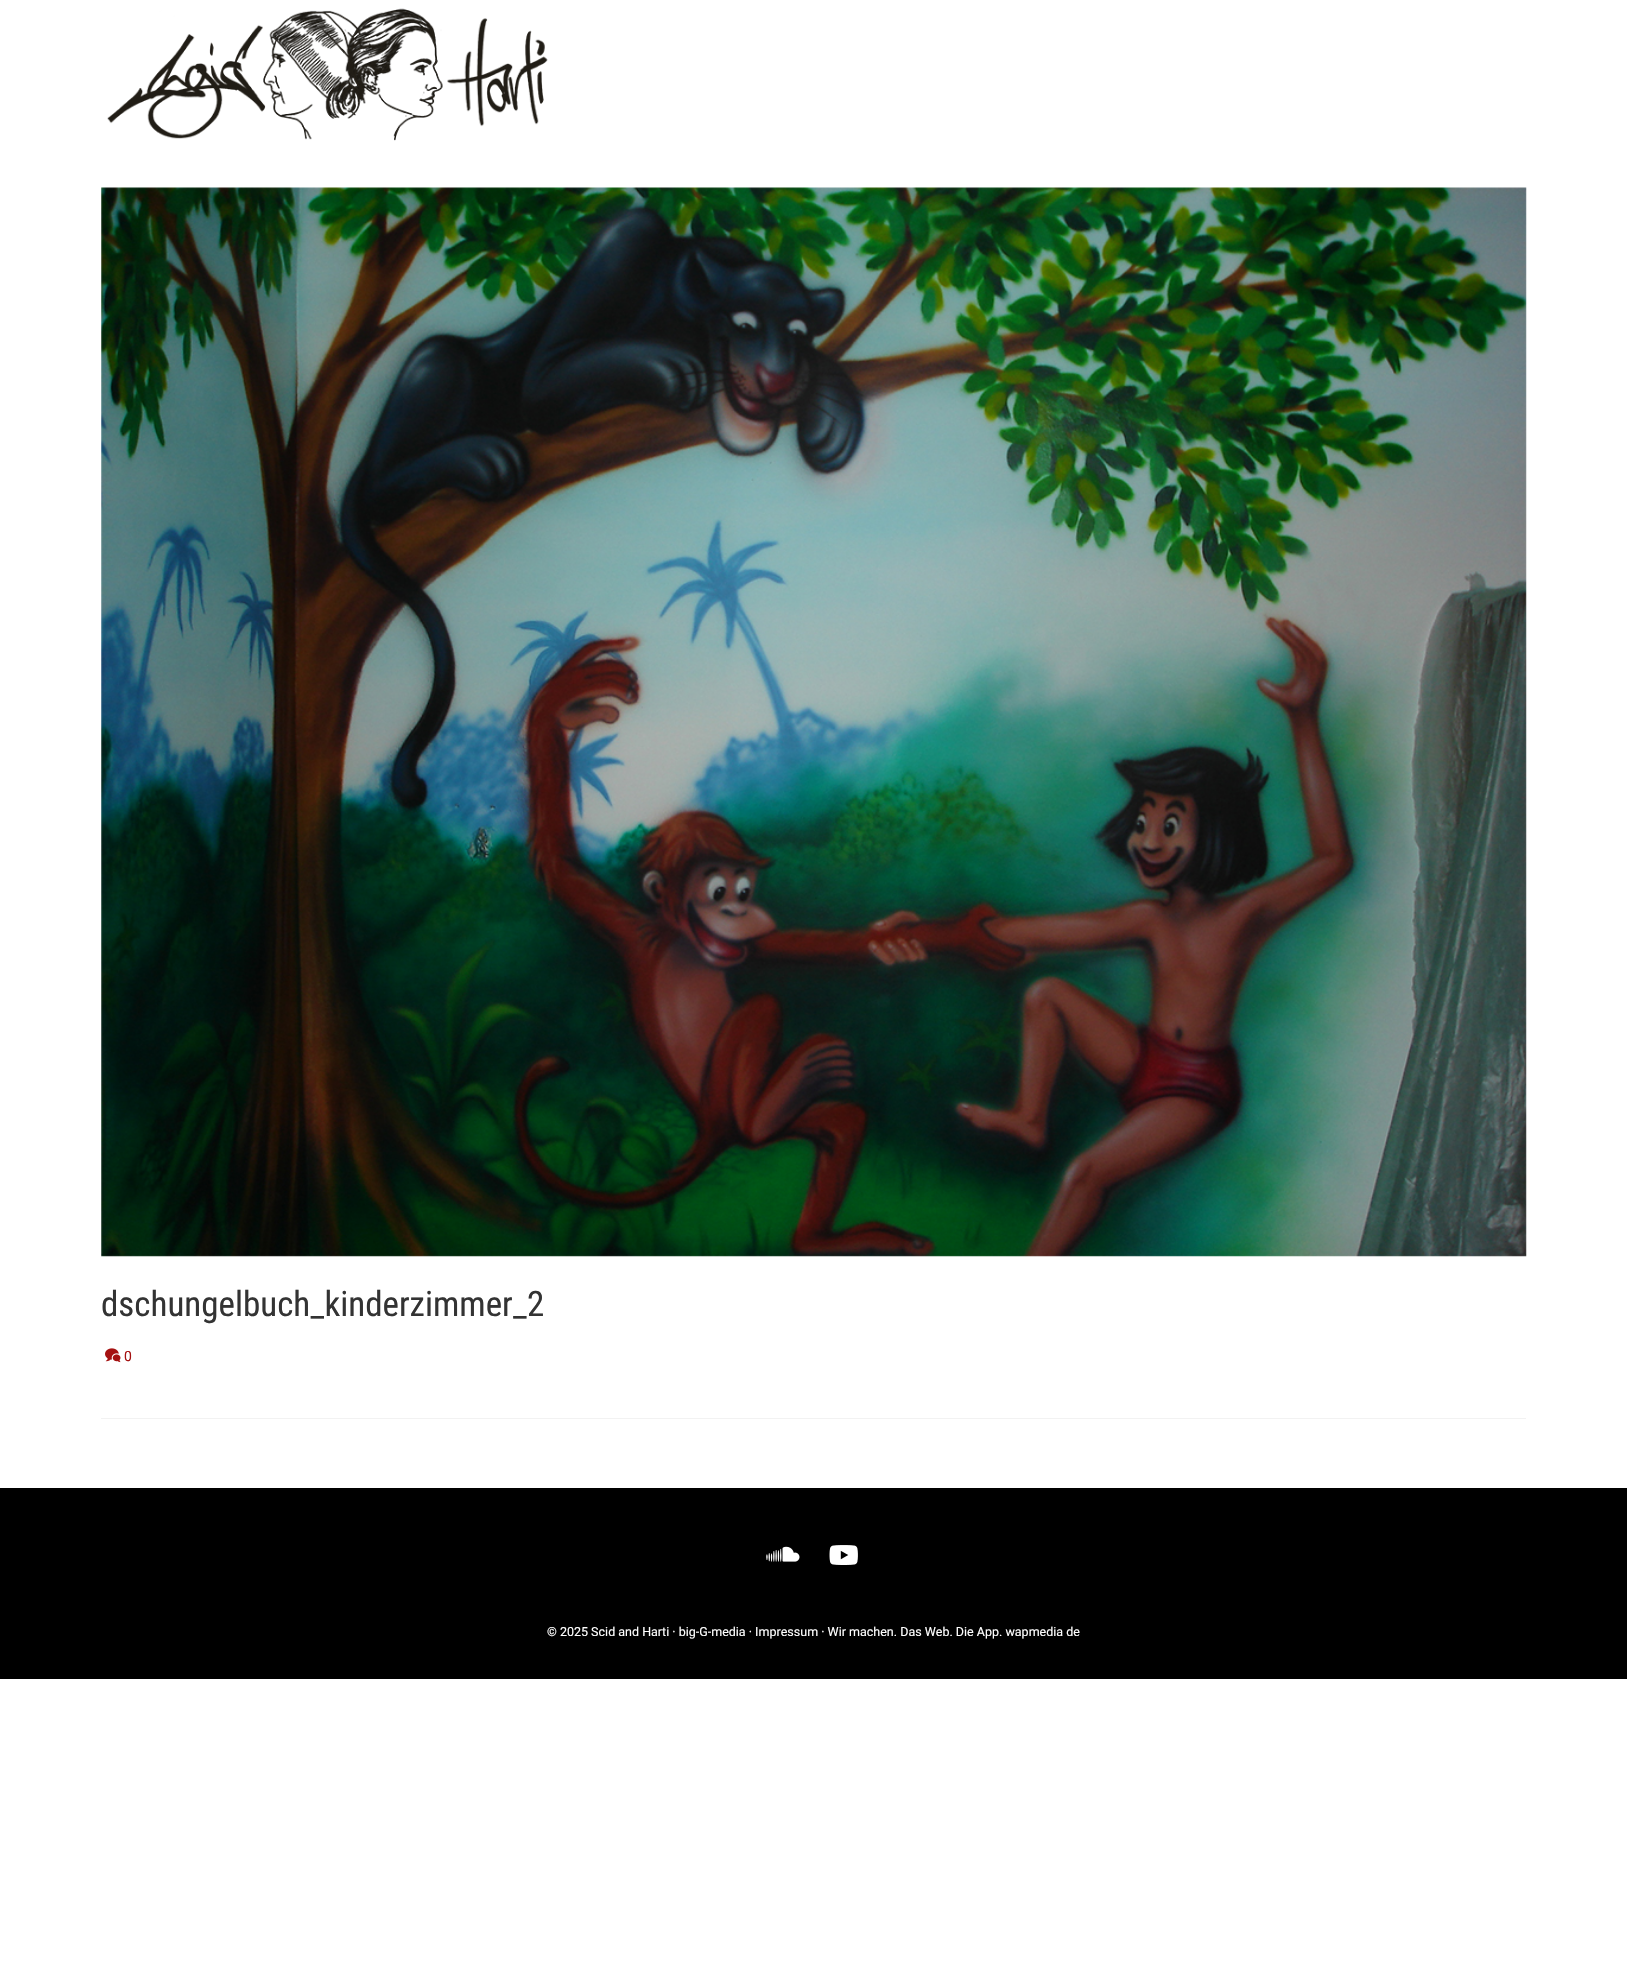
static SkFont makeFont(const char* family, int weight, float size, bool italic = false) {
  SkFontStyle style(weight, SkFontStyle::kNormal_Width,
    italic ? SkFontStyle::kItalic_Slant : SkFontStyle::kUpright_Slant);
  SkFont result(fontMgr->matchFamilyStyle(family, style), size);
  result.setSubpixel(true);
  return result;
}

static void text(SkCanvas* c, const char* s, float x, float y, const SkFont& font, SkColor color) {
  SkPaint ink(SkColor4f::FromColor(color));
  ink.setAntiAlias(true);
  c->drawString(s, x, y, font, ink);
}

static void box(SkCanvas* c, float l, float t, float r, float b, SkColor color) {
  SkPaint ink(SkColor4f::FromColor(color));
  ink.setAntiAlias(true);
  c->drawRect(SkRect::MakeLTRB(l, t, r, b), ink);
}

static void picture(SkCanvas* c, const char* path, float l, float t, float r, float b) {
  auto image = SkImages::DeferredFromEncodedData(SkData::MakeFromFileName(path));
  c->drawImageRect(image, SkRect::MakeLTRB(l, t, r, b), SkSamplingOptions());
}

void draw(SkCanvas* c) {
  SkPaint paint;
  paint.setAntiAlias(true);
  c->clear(0xffffffff);
  picture(c, "img_01.png", 107, 8, 548, 141);
  picture(c, "img_02.png", 101, 187, 1527, 1257);
  SkFont face1 = makeFont("Roboto Condensed", 400, 35);
  text(c, "dschungelbuch_kinderzimmer_2", 101, 1316, face1, 0xff333333);
  picture(c, "img_03.png", 105, 1348, 121, 1363);
  SkFont face2 = makeFont("Roboto", 400, 14);
  text(c, "0", 124, 1361, face2, 0xffa51111);
  box(c, 101, 1418, 1526, 1419, 0xfff2f2f2);
  box(c, 0, 1488, 1627, 1679, 0xff000000);
  picture(c, "img_04.png", 766, 1546, 800, 1562);
  picture(c, "img_05.png", 829, 1545, 858, 1565);
  SkFont face3 = makeFont("Roboto", 400, 12.5f);
  text(c, "© 2025 Scid and Harti · big-G-media · Impressum · Wir machen. Das Web. Die App. wapmedia de", 547, 1636, face3, 0xffffffff);
}
